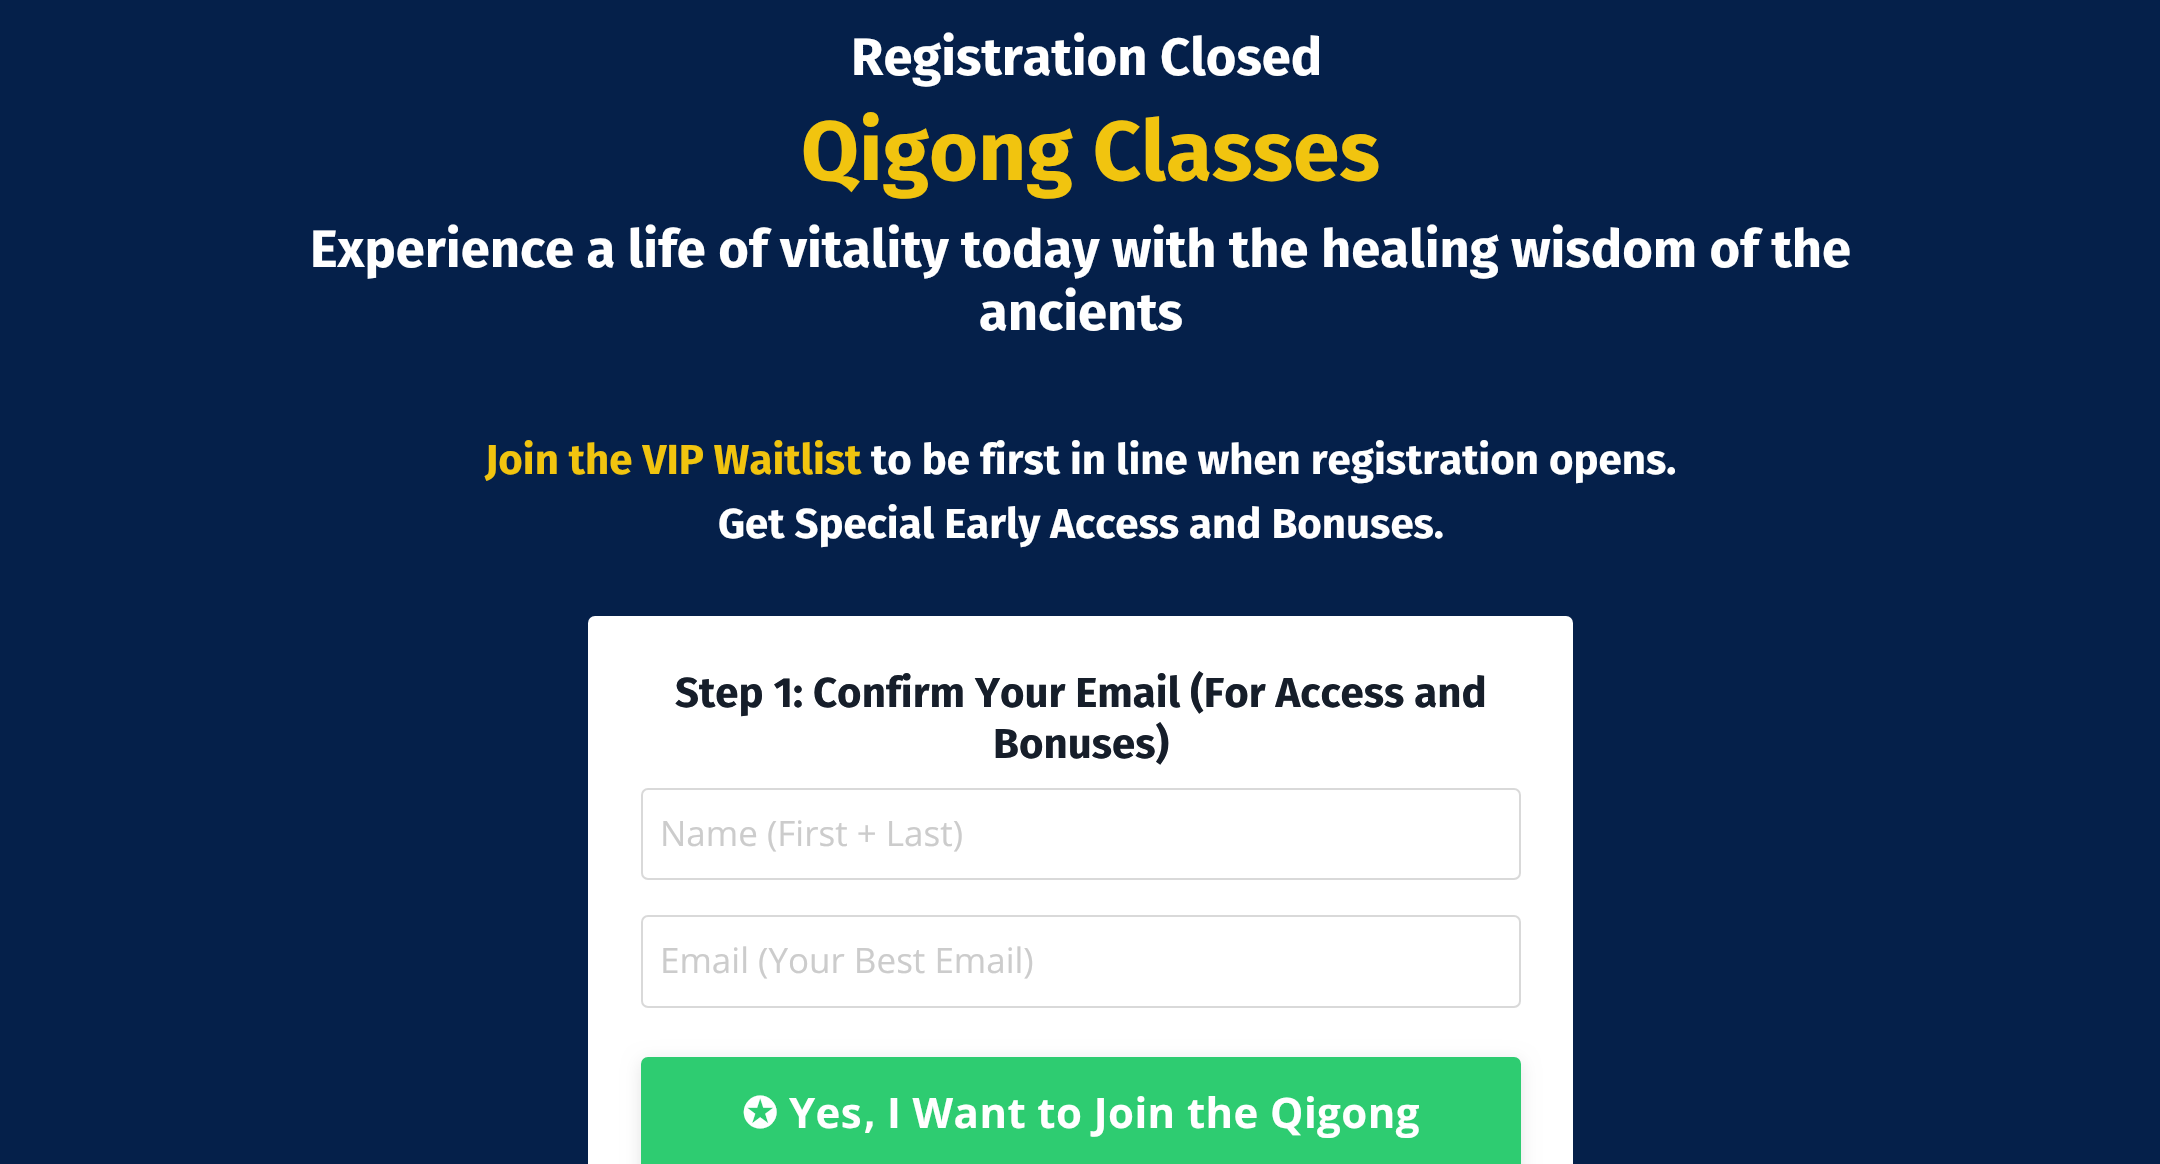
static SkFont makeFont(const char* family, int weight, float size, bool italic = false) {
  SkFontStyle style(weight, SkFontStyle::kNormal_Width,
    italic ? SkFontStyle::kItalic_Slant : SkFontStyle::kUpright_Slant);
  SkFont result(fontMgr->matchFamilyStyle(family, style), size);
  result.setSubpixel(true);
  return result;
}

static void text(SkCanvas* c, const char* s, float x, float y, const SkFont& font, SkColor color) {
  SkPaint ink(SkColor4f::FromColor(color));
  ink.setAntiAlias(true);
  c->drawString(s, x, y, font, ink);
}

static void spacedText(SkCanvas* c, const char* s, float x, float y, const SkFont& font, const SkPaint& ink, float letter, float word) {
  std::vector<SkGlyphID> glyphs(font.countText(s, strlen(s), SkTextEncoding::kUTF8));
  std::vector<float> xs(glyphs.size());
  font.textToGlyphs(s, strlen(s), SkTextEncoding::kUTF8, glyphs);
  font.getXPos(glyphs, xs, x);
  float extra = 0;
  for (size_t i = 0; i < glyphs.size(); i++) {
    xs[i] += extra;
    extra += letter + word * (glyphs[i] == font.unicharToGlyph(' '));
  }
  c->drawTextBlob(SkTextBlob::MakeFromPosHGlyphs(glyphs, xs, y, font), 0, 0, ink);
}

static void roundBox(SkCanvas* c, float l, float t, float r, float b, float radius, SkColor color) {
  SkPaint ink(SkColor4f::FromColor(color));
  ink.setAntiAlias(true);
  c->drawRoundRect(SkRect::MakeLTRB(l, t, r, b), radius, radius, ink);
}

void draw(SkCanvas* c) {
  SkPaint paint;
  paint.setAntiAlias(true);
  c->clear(0xff05204a);
  SkFont face1 = makeFont("Fira Sans", 700, 52.5f);
  text(c, "Registration Closed", 851, 75, face1, 0xffffffff);
  SkFont face2 = makeFont("Fira Sans", 700, 84);
  text(c, "Qigong Classes", 801, 180, face2, 0xfff1c40f);
  text(c, "Experience a life of vitality today with the healing wisdom of the", 310, 267, face1, 0xffffffff);
  text(c, "ancients", 979, 330, face1, 0xffffffff);
  SkFont face3 = makeFont("Fira Sans", 700, 42);
  text(c, "Join the VIP Waitlist", 485, 474, face3, 0xfff1c40f);
  text(c, "to be first in line when registration opens.", 871, 474, face3, 0xffffffff);
  text(c, "Get Special Early Access and Bonuses.", 718, 538, face3, 0xffffffff);
  roundBox(c, 588, 616, 1573, 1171, 7, 0xffffffff);
  text(c, "Step 1: Confirm Your Email (For Access and", 675, 707, face3, 0xff161e2a);
  text(c, "Bonuses)", 993, 758, face3, 0xff161e2a);
  paint.setStyle(SkPaint::kStroke_Style);
  paint.setStrokeWidth(2);
  paint.setColor(0xffd9d9d9);
  c->drawRoundRect(SkRect::MakeLTRB(642, 789, 1520, 879), 6, 6, paint);
  SkFont face4 = makeFont("Open Sans", 400, 35);
  text(c, "Name (First + Last)", 660, 846, face4, 0xffcccccc);
  c->drawRoundRect(SkRect::MakeLTRB(642, 916, 1520, 1007), 6, 6, paint);
  text(c, "Email (Your Best Email)", 660, 973, face4, 0xffcccccc);
  paint.setStyle(SkPaint::kFill_Style);
  paint.setColor(0x1a000000);
  paint.setMaskFilter(SkMaskFilter::MakeBlur(kNormal_SkBlurStyle, 9));
  c->drawRoundRect(SkRect::MakeLTRB(641, 1061, 1521, 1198), 7, 7, paint);
  paint.setMaskFilter(nullptr);
  paint.setColor(0xff2ecc71);
  c->drawRoundRect(SkRect::MakeLTRB(643, 1059, 1519, 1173), 5, 5, paint);
  paint.setStyle(SkPaint::kStroke_Style);
  paint.setStrokeWidth(4);
  c->drawRoundRect(SkRect::MakeLTRB(643, 1059, 1519, 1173), 5, 5, paint);
  SkFont face5 = makeFont("DejaVu Sans", 700, 42);
  paint.setStyle(SkPaint::kFill_Style);
  paint.setColor(0xffffffff);
  spacedText(c, "✪", 742, 1128, face5, paint, 0.4f, 0);
  SkFont face6 = makeFont("Open Sans", 700, 42);
  spacedText(c, "Yes", 789, 1128, face6, paint, 0.4f, 0);
  spacedText(c, ",", 862, 1128, face5, paint, 0.4f, 0);
  spacedText(c, "I Want to Join the Qigong", 887, 1128, face6, paint, 0.4f, 0);
}
